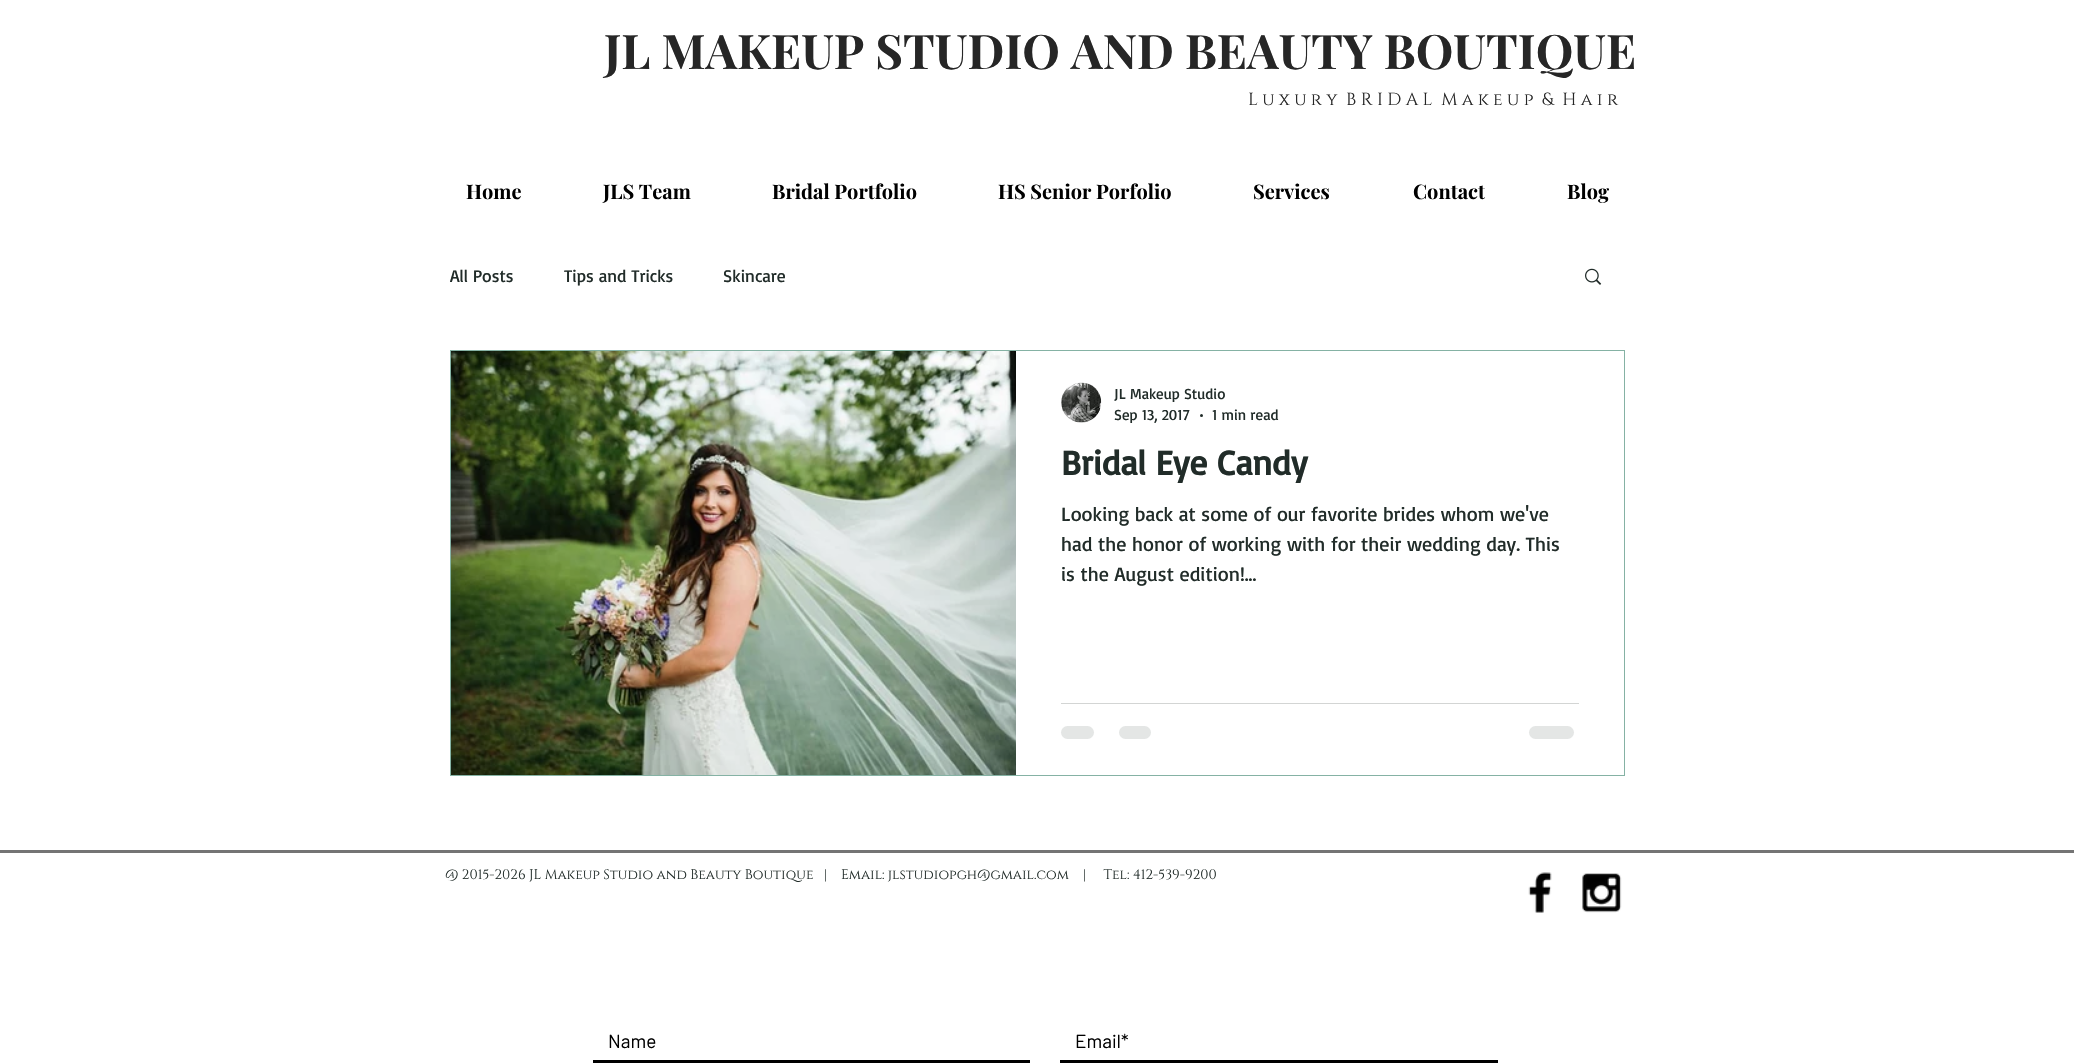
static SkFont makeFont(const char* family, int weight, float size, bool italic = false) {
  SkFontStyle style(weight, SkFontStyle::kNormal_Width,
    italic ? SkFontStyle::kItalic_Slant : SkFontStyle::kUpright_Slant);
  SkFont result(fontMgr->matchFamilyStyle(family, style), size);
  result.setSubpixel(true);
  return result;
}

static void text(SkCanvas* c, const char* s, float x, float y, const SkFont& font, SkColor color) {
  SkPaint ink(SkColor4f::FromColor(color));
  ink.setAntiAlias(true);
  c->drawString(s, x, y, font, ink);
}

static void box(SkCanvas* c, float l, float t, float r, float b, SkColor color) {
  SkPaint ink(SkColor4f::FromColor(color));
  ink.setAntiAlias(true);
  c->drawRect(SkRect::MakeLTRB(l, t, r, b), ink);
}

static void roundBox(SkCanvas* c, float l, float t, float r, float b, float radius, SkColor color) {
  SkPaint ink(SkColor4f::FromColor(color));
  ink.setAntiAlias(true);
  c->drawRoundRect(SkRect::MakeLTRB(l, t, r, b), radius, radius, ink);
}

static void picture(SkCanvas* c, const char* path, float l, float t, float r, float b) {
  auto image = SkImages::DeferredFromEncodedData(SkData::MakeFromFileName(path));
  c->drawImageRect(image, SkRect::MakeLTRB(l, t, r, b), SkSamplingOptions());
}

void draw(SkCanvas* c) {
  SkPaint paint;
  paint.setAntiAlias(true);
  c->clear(0xffffffff);
  SkFont face1 = makeFont("Playfair Display", 700, 47.5f);
  text(c, "JL MAKEUP STUDIO AND BEAUTY BOUTIQUE", 604, 69, face1, 0xff262626);
  SkFont face2 = makeFont("Cinzel", 400, 17.5f);
  text(c, "L u x u r y  B R I D A L  M a k e u p  &  H a i r", 1248, 105, face2, 0xff262626);
  SkFont face3 = makeFont("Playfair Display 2", 700, 20);
  text(c, "Home", 466, 199, face3, 0xff000000);
  text(c, "JLS Team", 603, 199, face3, 0xff000000);
  text(c, "Bridal Portfolio", 772, 199, face3, 0xff000000);
  text(c, "HS Senior Porfolio", 998, 199, face3, 0xff000000);
  text(c, "Services", 1253, 199, face3, 0xff000000);
  text(c, "Contact", 1413, 199, face3, 0xff000000);
  text(c, "Blog", 1567, 199, face3, 0xff000000);
  SkFont face4 = makeFont("Basic", 400, 17.5f);
  text(c, "All Posts", 450, 282, face4, 0xff212c29);
  text(c, "Tips and Tricks", 564, 282, face4, 0xff212c29);
  text(c, "Skincare", 723, 282, face4, 0xff212c29);
  picture(c, "img_01.png", 1585, 268, 1602, 285);
  paint.setStyle(SkPaint::kStroke_Style);
  paint.setStrokeWidth(1);
  paint.setColor(0xff85b2a4);
  c->drawRect(SkRect::MakeLTRB(450.5f, 350.5f, 1624.5f, 775.5f), paint);
  picture(c, "img_02.png", 451, 351, 1016, 775);
  picture(c, "img_03.png", 1061, 382, 1102, 423);
  SkFont face5 = makeFont("Basic", 400, 15);
  text(c, "JL Makeup Studio", 1114, 399, face5, 0xff212c29);
  text(c, "Sep 13, 2017", 1114, 420, face5, 0xff212c29);
  paint.setStyle(SkPaint::kFill_Style);
  paint.setColor(0xff212c29);
  c->drawCircle(1201.5f, 415.5f, 1.5f, paint);
  text(c, "1 min read", 1212, 420, face5, 0xff212c29);
  SkFont face6 = makeFont("Basic", 700, 35);
  text(c, "Bridal Eye Candy", 1061, 475, face6, 0xff212c29);
  SkFont face7 = makeFont("Basic", 400, 20);
  text(c, "Looking back at some of our favorite brides whom we've", 1061, 521, face7, 0xff212c29);
  text(c, "had the honor of working with for their wedding day. This", 1061, 551, face7, 0xff212c29);
  text(c, "is the August edition!...", 1061, 581, face7, 0xff212c29);
  box(c, 1061, 703, 1579, 704, 0xffd3d5d4);
  roundBox(c, 1061, 726, 1094, 739, 6.5f, 0xffe4e6e5);
  roundBox(c, 1119, 726, 1151, 739, 6.5f, 0xffe4e6e5);
  roundBox(c, 1529, 726, 1574, 739, 6.5f, 0xffe4e6e5);
  box(c, 0, 850, 2074, 853, 0xff747474);
  SkFont face8 = makeFont("Cinzel", 400, 13.75f);
  text(c, "@ 2015-2026 JL Makeup Studio and Beauty Boutique   |    Email: jlstudiopgh@gmail.com", 445, 879, face8, 0xff212c29);
  text(c, "|     Tel: 412-539-9200", 1083, 879, face8, 0xff212c29);
  picture(c, "img_04.png", 1528, 872, 1552, 913);
  picture(c, "img_05.png", 1582, 873, 1622, 913);
  box(c, 593, 1060, 1030, 1063, 0xff000000);
  SkFont face9 = makeFont("Barlow", 400, 19);
  text(c, "Name", 608, 1048, face9, 0xff000000);
  box(c, 1060, 1060, 1498, 1063, 0xff000000);
  text(c, "Email*", 1075, 1048, face9, 0xff000000);
}
